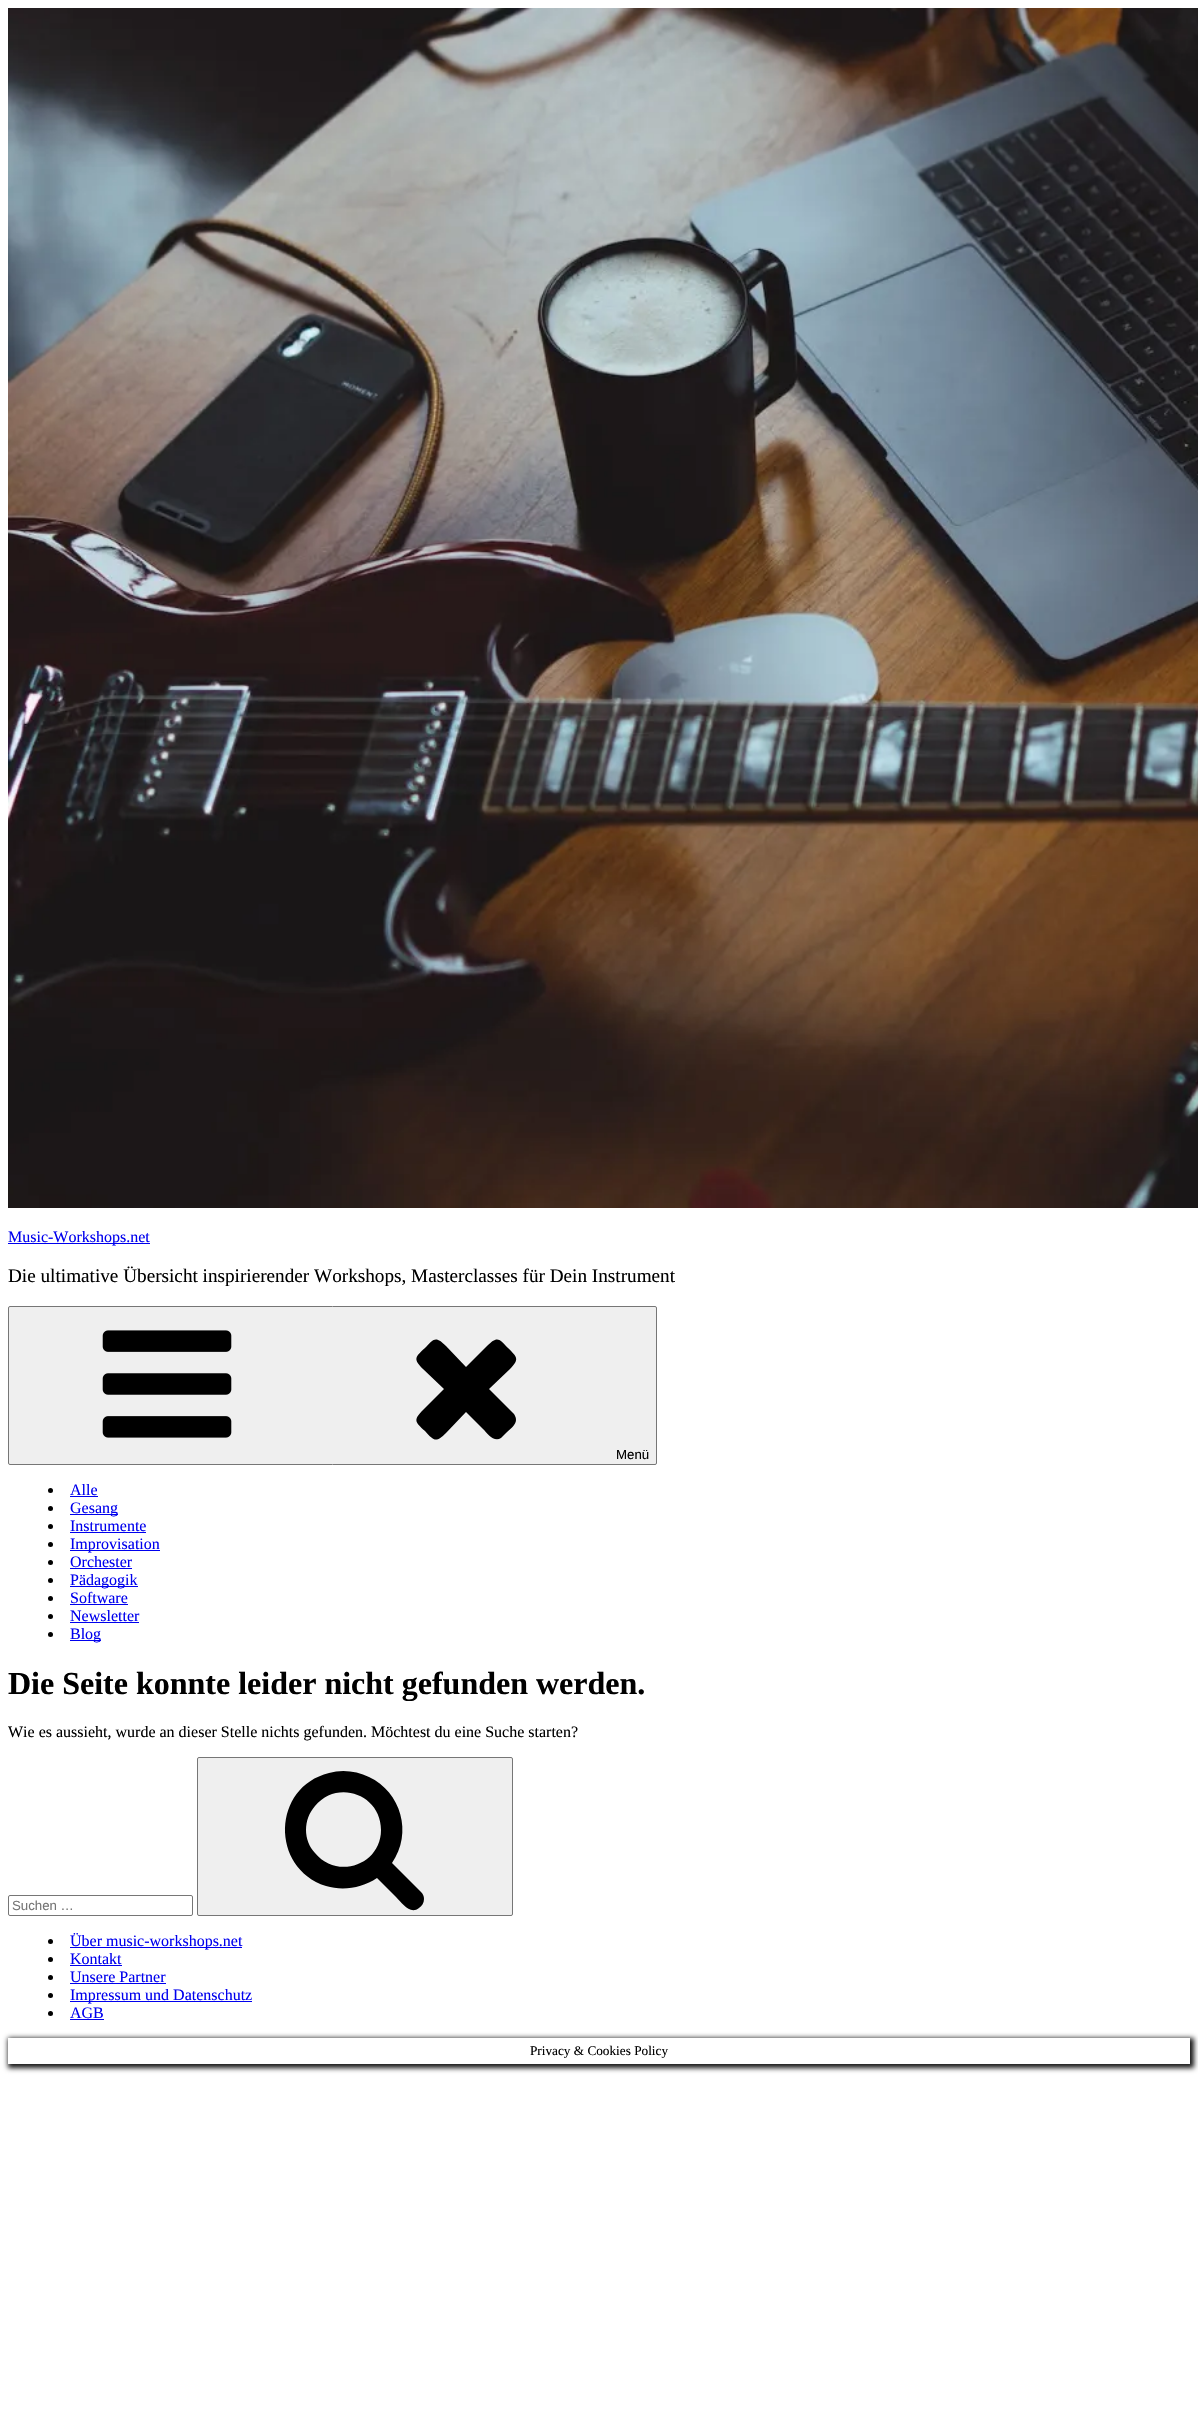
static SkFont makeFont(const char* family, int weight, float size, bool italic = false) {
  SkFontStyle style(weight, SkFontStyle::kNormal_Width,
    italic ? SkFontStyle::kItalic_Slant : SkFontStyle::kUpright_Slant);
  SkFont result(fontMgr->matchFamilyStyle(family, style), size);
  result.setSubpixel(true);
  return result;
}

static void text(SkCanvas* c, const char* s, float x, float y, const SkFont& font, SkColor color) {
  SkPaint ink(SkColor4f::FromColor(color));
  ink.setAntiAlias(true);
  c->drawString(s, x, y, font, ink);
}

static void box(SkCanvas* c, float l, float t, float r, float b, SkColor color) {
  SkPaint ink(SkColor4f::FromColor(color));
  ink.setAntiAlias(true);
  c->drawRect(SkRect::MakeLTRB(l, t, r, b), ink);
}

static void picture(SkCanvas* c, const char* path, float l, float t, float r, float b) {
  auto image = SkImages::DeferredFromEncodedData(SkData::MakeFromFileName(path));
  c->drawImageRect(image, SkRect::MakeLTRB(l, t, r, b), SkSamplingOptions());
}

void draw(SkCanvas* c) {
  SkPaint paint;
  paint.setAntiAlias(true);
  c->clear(0xffffffff);
  picture(c, "img_01.png", 8, 8, 1198, 1208);
  box(c, 8, 1243, 150, 1244, 0xff0000ee);
  SkFont face1 = makeFont("Liberation Serif", 400, 16);
  text(c, "Music-Workshops.net", 8, 1242, face1, 0xff0000ee);
  SkFont face2 = makeFont("Liberation Serif", 400, 19.2f);
  text(c, "Die ultimative Übersicht inspirierender Workshops, Masterclasses für Dein Instrument", 8, 1282, face2, 0xff000000);
  paint.setColor(0xffefefef);
  c->drawRoundRect(SkRect::MakeLTRB(8.5f, 1306.5f, 656.5f, 1464.5f), 1.5f, 1.5f, paint);
  paint.setStyle(SkPaint::kStroke_Style);
  paint.setStrokeWidth(1);
  paint.setColor(0xff767676);
  c->drawRoundRect(SkRect::MakeLTRB(8.5f, 1306.5f, 656.5f, 1464.5f), 1.5f, 1.5f, paint);
  picture(c, "img_02.png", 102, 1330, 232, 1438);
  paint.setStyle(SkPaint::kFill_Style);
  paint.setColor(0xff000000);
  c->drawPath(SkPathBuilder().moveTo(516, 1420).cubicTo(516, 1425, 510, 1429, 506, 1433).lineTo(501, 1438).cubicTo(494, 1443, 487, 1433, 483, 1429).lineTo(466, 1412).lineTo(446, 1433).cubicTo(436, 1443, 434, 1441, 425, 1431).cubicTo(415, 1422, 413, 1420, 423, 1410).lineTo(444, 1389).lineTo(423, 1369).cubicTo(413, 1359, 415, 1357, 425, 1348).cubicTo(434, 1338, 436, 1336, 446, 1346).lineTo(466, 1367).lineTo(487, 1346).cubicTo(497, 1336, 499, 1338, 508, 1348).cubicTo(517, 1357, 520, 1359, 510, 1369).lineTo(489, 1389).lineTo(514, 1414).cubicTo(515, 1416, 516, 1417, 516, 1420).close().detach(), paint);
  SkFont face3 = makeFont("Liberation Sans", 400, 13.25f);
  text(c, "Menü", 616, 1459, face3, 0xff000000);
  c->drawCircle(50.5f, 1490.5f, 2.5f, paint);
  text(c, "Alle", 70, 1495, face1, 0xff0000ee);
  box(c, 70, 1496, 98, 1497, 0xff0000ee);
  c->drawCircle(50.5f, 1508.5f, 2.5f, paint);
  box(c, 70, 1514, 118, 1515, 0xff0000ee);
  text(c, "Gesang", 70, 1513, face1, 0xff0000ee);
  c->drawCircle(50.5f, 1526.5f, 2.5f, paint);
  text(c, "Instrumente", 70, 1531, face1, 0xff0000ee);
  box(c, 70, 1532, 146, 1533, 0xff0000ee);
  c->drawCircle(50.5f, 1544.5f, 2.5f, paint);
  box(c, 70, 1550, 160, 1551, 0xff0000ee);
  text(c, "Improvisation", 70, 1549, face1, 0xff0000ee);
  c->drawCircle(50.5f, 1562.5f, 2.5f, paint);
  text(c, "Orchester", 70, 1567, face1, 0xff0000ee);
  box(c, 70, 1568, 132, 1569, 0xff0000ee);
  c->drawCircle(50.5f, 1580.5f, 2.5f, paint);
  box(c, 70, 1586, 138, 1587, 0xff0000ee);
  text(c, "Pädagogik", 70, 1585, face1, 0xff0000ee);
  c->drawCircle(50.5f, 1598.5f, 2.5f, paint);
  text(c, "Software", 70, 1603, face1, 0xff0000ee);
  box(c, 70, 1604, 128, 1605, 0xff0000ee);
  c->drawCircle(50.5f, 1616.5f, 2.5f, paint);
  text(c, "Newsletter", 70, 1621, face1, 0xff0000ee);
  box(c, 70, 1622, 139, 1623, 0xff0000ee);
  c->drawCircle(50.5f, 1634.5f, 2.5f, paint);
  box(c, 70, 1640, 101, 1641, 0xff0000ee);
  text(c, "Blog", 70, 1639, face1, 0xff0000ee);
  SkFont face4 = makeFont("Liberation Serif", 700, 32);
  text(c, "Die Seite konnte leider nicht gefunden werden.", 8, 1694, face4, 0xff000000);
  text(c, "Wie es aussieht, wurde an dieser Stelle nichts gefunden. Möchtest du eine Suche starten?", 8, 1737, face1, 0xff000000);
  paint.setStyle(SkPaint::kStroke_Style);
  paint.setColor(0xff767676);
  c->drawRoundRect(SkRect::MakeLTRB(8.5f, 1895.5f, 192.5f, 1915.5f), 1.5f, 1.5f, paint);
  text(c, "Suchen …", 12, 1910, face3, 0xff757575);
  paint.setStyle(SkPaint::kFill_Style);
  paint.setColor(0xffefefef);
  c->drawRoundRect(SkRect::MakeLTRB(197.5f, 1757.5f, 512.5f, 1915.5f), 1.5f, 1.5f, paint);
  paint.setStyle(SkPaint::kStroke_Style);
  paint.setColor(0xff767676);
  c->drawRoundRect(SkRect::MakeLTRB(197.5f, 1757.5f, 512.5f, 1915.5f), 1.5f, 1.5f, paint);
  paint.setStyle(SkPaint::kFill_Style);
  paint.setColor(0xff000000);
  c->drawPath(SkPathBuilder().moveTo(381, 1830).cubicTo(381, 1794, 337, 1779, 315, 1806).cubicTo(309, 1813, 306, 1821, 306, 1830).cubicTo(306, 1838, 309, 1847, 315, 1853).cubicTo(337, 1880, 381, 1865, 381, 1830).close().moveTo(424, 1899).cubicTo(424, 1903, 422, 1906, 419, 1908).cubicTo(410, 1915, 402, 1903, 396, 1897).lineTo(377, 1878).cubicTo(362, 1888, 343, 1891, 326, 1886).cubicTo(270, 1868, 272, 1787, 329, 1773).cubicTo(342, 1769, 357, 1771, 369, 1777).cubicTo(401, 1792, 413, 1833, 392, 1863).lineTo(421, 1892).cubicTo(423, 1894, 424, 1896, 424, 1899).close().detach(), paint);
  c->drawCircle(50.5f, 1941.5f, 2.5f, paint);
  box(c, 70, 1947, 242, 1948, 0xff0000ee);
  text(c, "Über music-workshops.net", 70, 1946, face1, 0xff0000ee);
  c->drawCircle(50.5f, 1959.5f, 2.5f, paint);
  text(c, "Kontakt", 70, 1964, face1, 0xff0000ee);
  box(c, 70, 1965, 122, 1966, 0xff0000ee);
  c->drawCircle(50.5f, 1977.5f, 2.5f, paint);
  text(c, "Unsere Partner", 70, 1982, face1, 0xff0000ee);
  box(c, 70, 1983, 166, 1984, 0xff0000ee);
  c->drawCircle(50.5f, 1995.5f, 2.5f, paint);
  box(c, 70, 2001, 252, 2002, 0xff0000ee);
  text(c, "Impressum und Datenschutz", 70, 2000, face1, 0xff0000ee);
  c->drawCircle(50.5f, 2013.5f, 2.5f, paint);
  text(c, "AGB", 70, 2018, face1, 0xff0000ee);
  box(c, 70, 2019, 104, 2020, 0xff0000ee);
  c->save();
  c->clipPath(SkPathBuilder(SkPathFillType::kEvenOdd).moveTo(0, 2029).lineTo(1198, 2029).lineTo(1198, 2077).lineTo(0, 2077).close().moveTo(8, 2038).lineTo(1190, 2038).lineTo(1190, 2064).lineTo(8, 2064).close().detach(), true);
  paint.setColor(0xff161616);
  paint.setMaskFilter(SkMaskFilter::MakeBlur(kNormal_SkBlurStyle, 2.5f));
  c->drawRect(SkRect::MakeLTRB(8, 2038, 1194, 2068), paint);
  paint.setMaskFilter(nullptr);
  c->restore();
  SkFont face5 = makeFont("Liberation Serif", 400, 13.25f);
  text(c, "Privacy & Cookies Policy", 530, 2055, face5, 0xff000000);
}
